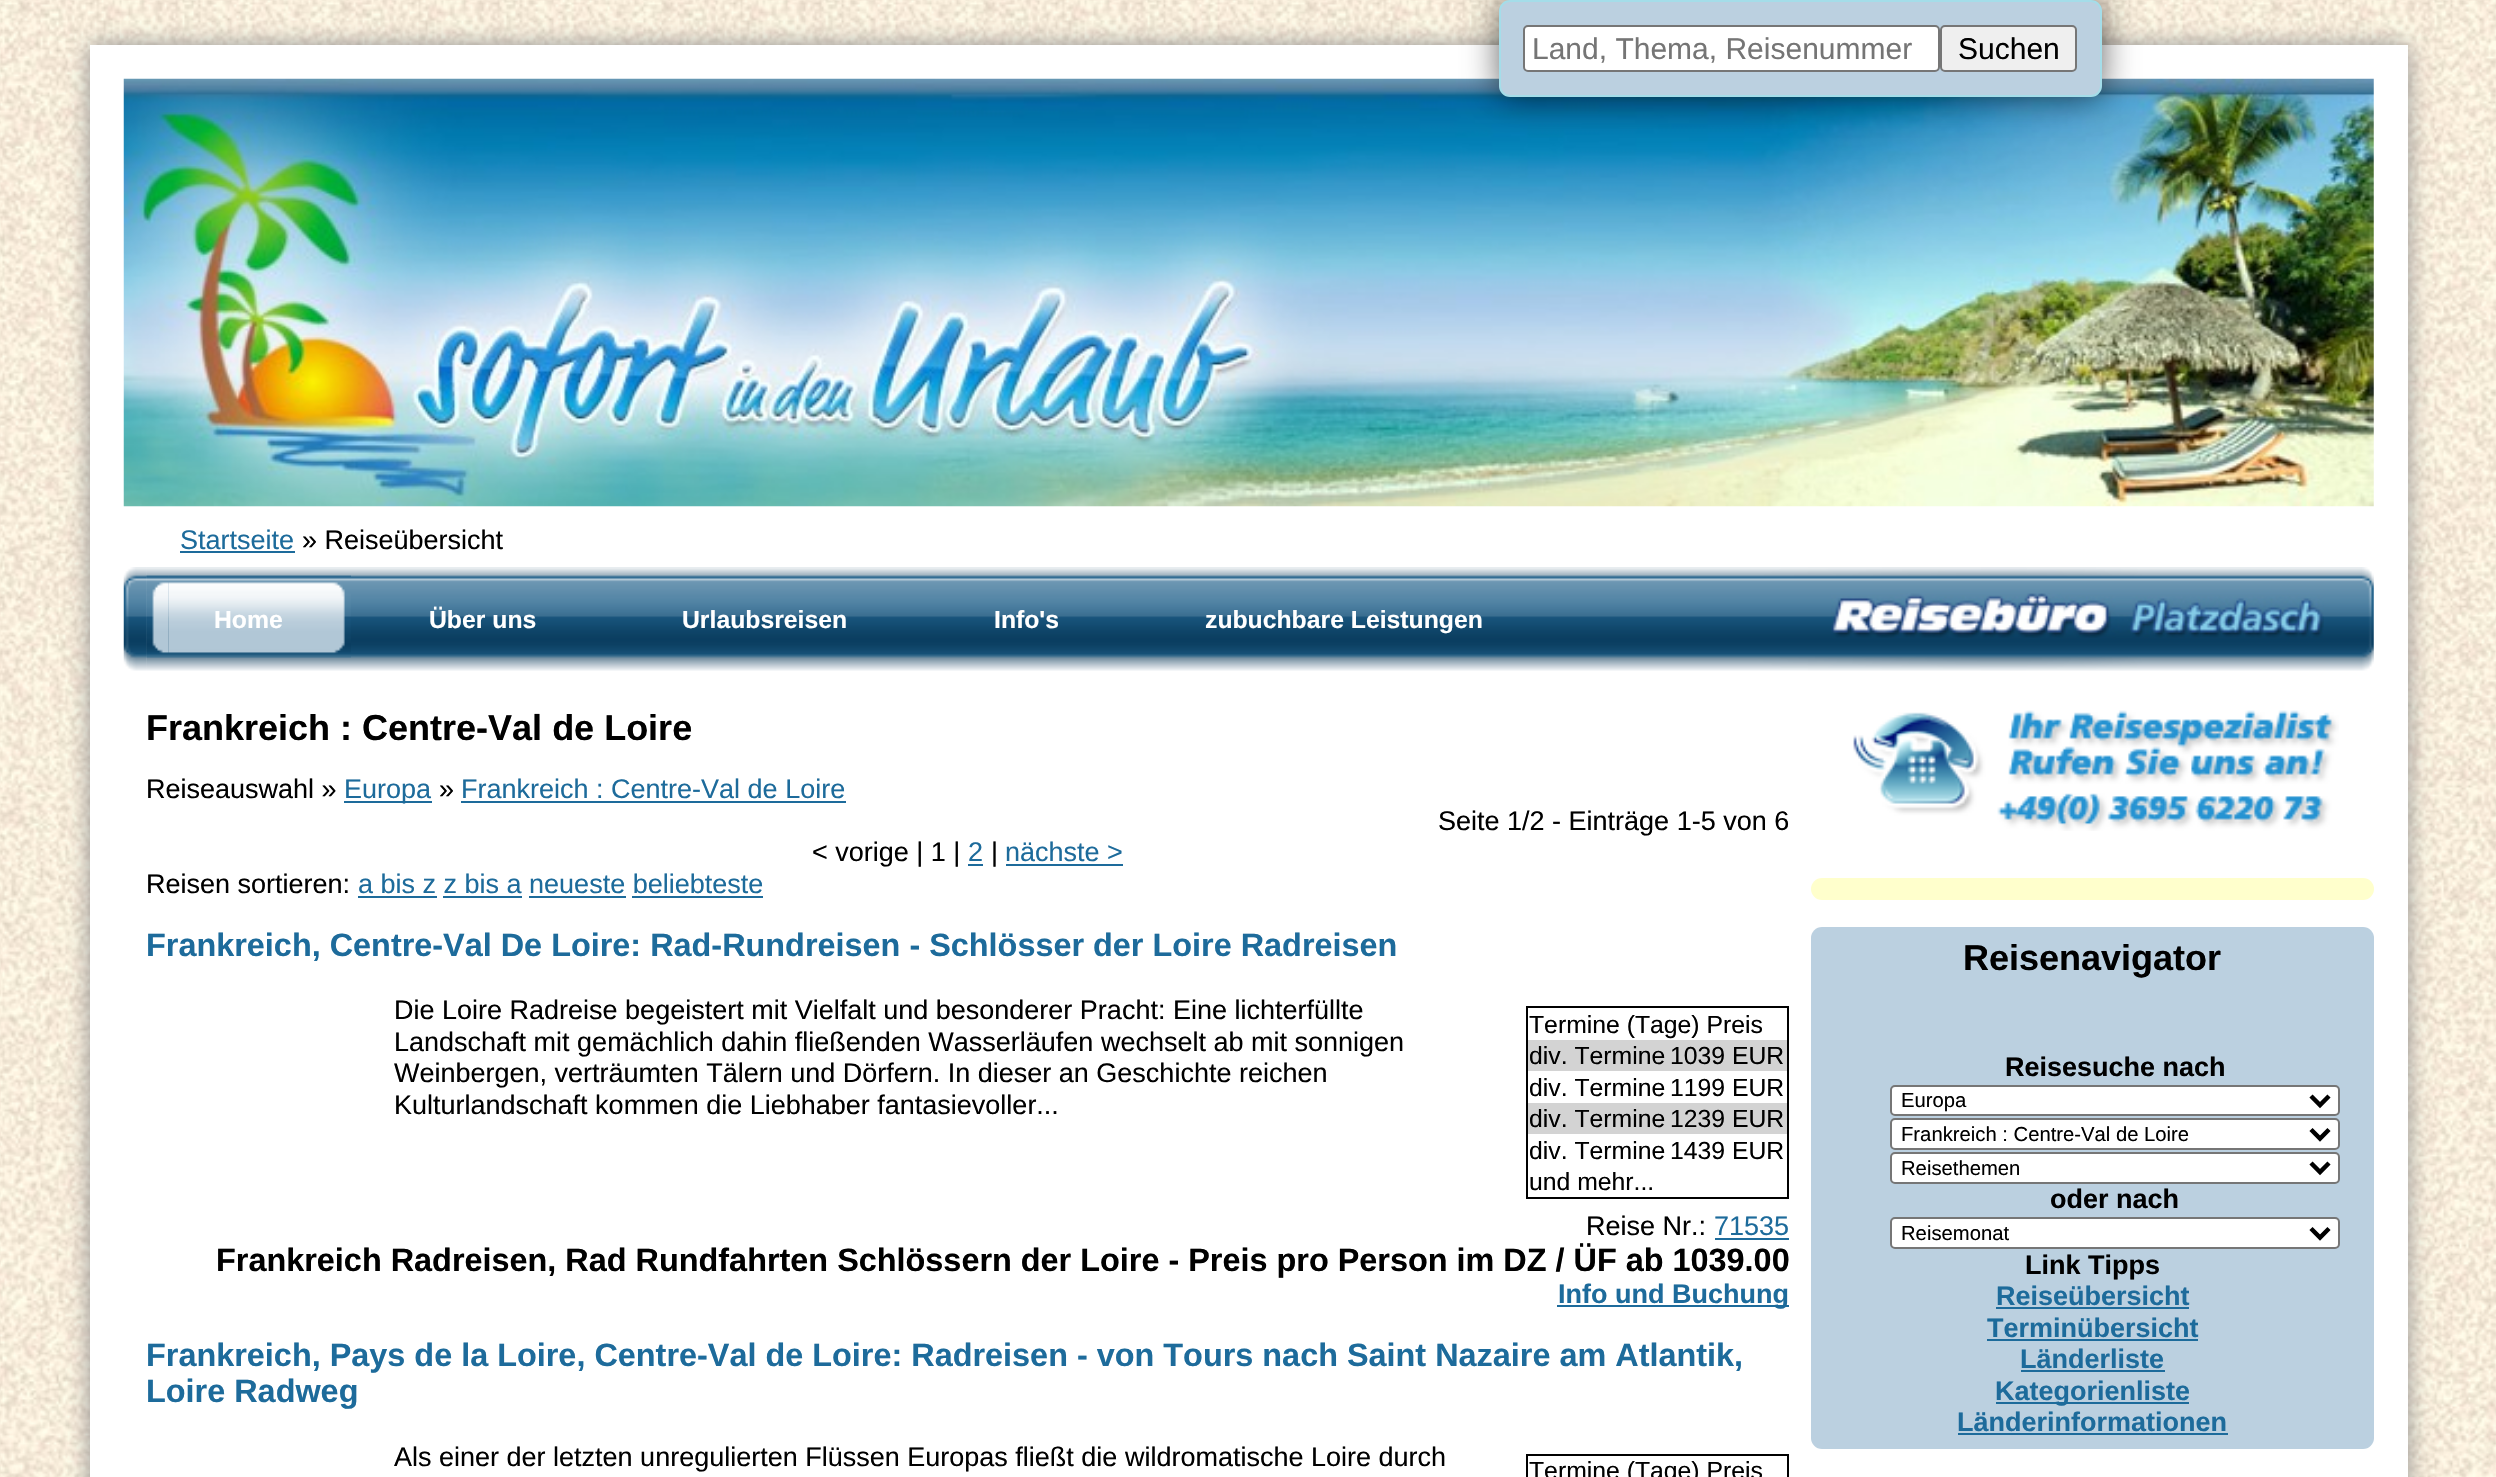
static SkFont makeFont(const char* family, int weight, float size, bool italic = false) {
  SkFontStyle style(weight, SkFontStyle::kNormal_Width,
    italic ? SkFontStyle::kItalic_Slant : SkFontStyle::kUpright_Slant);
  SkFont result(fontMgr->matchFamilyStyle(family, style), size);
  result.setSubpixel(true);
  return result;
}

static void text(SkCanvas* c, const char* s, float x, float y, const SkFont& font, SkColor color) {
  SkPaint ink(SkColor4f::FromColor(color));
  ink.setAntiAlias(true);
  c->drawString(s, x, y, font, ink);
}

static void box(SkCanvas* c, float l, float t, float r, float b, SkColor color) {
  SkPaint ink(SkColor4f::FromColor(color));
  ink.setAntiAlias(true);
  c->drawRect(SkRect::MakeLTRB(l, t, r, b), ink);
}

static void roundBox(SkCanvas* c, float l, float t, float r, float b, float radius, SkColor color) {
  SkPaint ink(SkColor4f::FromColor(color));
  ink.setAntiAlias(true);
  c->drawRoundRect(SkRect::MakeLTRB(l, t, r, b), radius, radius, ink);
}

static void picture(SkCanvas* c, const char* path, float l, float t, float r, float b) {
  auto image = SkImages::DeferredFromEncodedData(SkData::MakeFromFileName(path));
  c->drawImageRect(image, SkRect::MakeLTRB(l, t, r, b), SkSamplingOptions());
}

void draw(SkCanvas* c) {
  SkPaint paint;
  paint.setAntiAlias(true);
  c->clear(0xffffffff);
  picture(c, "img_01.png", 0, 0, 2496, 1477);
  paint.setColor(0xff909090);
  paint.setMaskFilter(SkMaskFilter::MakeBlur(kNormal_SkBlurStyle, 11));
  c->drawRect(SkRect::MakeLTRB(90, 45, 2408, 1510), paint);
  paint.setMaskFilter(nullptr);
  box(c, 90, 45, 2408, 1477, 0xffffffff);
  picture(c, "img_03.png", 123, 78, 2374, 507);
  paint.setColor(0x99000000);
  paint.setMaskFilter(SkMaskFilter::MakeBlur(kNormal_SkBlurStyle, 17));
  c->drawRoundRect(SkRect::MakeLTRB(1499, 0, 2102, 97), 11, 11, paint);
  paint.setMaskFilter(nullptr);
  paint.setColor(0xffbbd0e0);
  c->drawRoundRect(SkRect::MakeLTRB(1500, 1, 2101, 96), 10, 10, paint);
  paint.setStyle(SkPaint::kStroke_Style);
  paint.setStrokeWidth(2);
  paint.setColor(0xffa4dde9);
  c->drawRoundRect(SkRect::MakeLTRB(1500, 1, 2101, 96), 10, 10, paint);
  paint.setStyle(SkPaint::kFill_Style);
  paint.setColor(0xffffffff);
  c->drawRoundRect(SkRect::MakeLTRB(1524, 26, 1939, 71), 4, 4, paint);
  paint.setStyle(SkPaint::kStroke_Style);
  paint.setColor(0xff767676);
  c->drawRoundRect(SkRect::MakeLTRB(1524, 26, 1939, 71), 4, 4, paint);
  SkFont face1 = makeFont("Liberation Sans", 400, 30);
  text(c, "Land, Thema, Reisenummer", 1532, 59, face1, 0xff757575);
  paint.setStyle(SkPaint::kFill_Style);
  paint.setColor(0xffefefef);
  c->drawRoundRect(SkRect::MakeLTRB(1941, 26, 2076, 71), 4, 4, paint);
  paint.setStyle(SkPaint::kStroke_Style);
  paint.setColor(0xff767676);
  c->drawRoundRect(SkRect::MakeLTRB(1941, 26, 2076, 71), 4, 4, paint);
  text(c, "Suchen", 1958, 59, face1, 0xff000000);
  SkFont face2 = makeFont("Liberation Sans", 700, 36);
  text(c, "Frankreich : Centre-Val de Loire", 146, 740, face2, 0xff000000);
  SkFont face3 = makeFont("Liberation Sans", 400, 27);
  text(c, "Reiseauswahl »", 146, 798, face3, 0xff000000);
  box(c, 344, 801, 432, 803, 0xff1d6b9b);
  text(c, "Europa", 344, 798, face3, 0xff1d6b9b);
  text(c, "»", 439, 798, face3, 0xff000000);
  text(c, "Frankreich : Centre-Val de Loire", 461, 798, face3, 0xff1d6b9b);
  box(c, 461, 801, 846, 803, 0xff1d6b9b);
  text(c, "Seite 1/2 - Einträge 1-5 von 6", 1438, 830, face3, 0xff000000);
  text(c, "< vorige | 1 |", 812, 861, face3, 0xff000000);
  text(c, "2", 968, 861, face3, 0xff1d6b9b);
  box(c, 968, 864, 983, 866, 0xff1d6b9b);
  text(c, "|", 991, 861, face3, 0xff000000);
  text(c, "nächste >", 1005, 861, face3, 0xff1d6b9b);
  box(c, 1006, 864, 1123, 866, 0xff1d6b9b);
  text(c, "Reisen sortieren:", 146, 893, face3, 0xff000000);
  text(c, "a bis z z bis a neueste beliebteste", 358, 893, face3, 0xff1d6b9b);
  box(c, 358, 896, 437, 898, 0xff1d6b9b);
  box(c, 443, 896, 522, 898, 0xff1d6b9b);
  box(c, 529, 896, 626, 898, 0xff1d6b9b);
  box(c, 632, 896, 763, 898, 0xff1d6b9b);
  SkFont face4 = makeFont("Liberation Sans", 700, 32.4f);
  text(c, "Frankreich, Centre-Val De Loire: Rad-Rundreisen - Schlösser der Loire Radreisen", 146, 956, face4, 0xff1d6b9b);
  text(c, "Die Loire Radreise begeistert mit Vielfalt und besonderer Pracht: Eine lichterfüllte", 394, 1019, face3, 0xff000000);
  text(c, "Landschaft mit gemächlich dahin fließenden Wasserläufen wechselt ab mit sonnigen", 394, 1051, face3, 0xff000000);
  box(c, 1526, 1006, 1789, 1008, 0xff000000);
  box(c, 1787, 1006, 1789, 1199, 0xff000000);
  box(c, 1526, 1197, 1789, 1199, 0xff000000);
  box(c, 1526, 1006, 1528, 1199, 0xff000000);
  SkFont face5 = makeFont("Liberation Sans", 400, 24.75f);
  text(c, "Termine (Tage) Preis", 1529, 1033, face5, 0xff000000);
  box(c, 1528, 1040, 1787, 1071, 0xffd3d3d3);
  text(c, "div. Termine", 1529, 1064, face5, 0xff000000);
  text(c, "1039 EUR", 1670, 1064, face5, 0xff000000);
  text(c, "div. Termine", 1529, 1096, face5, 0xff000000);
  text(c, "1199 EUR", 1670, 1096, face5, 0xff000000);
  box(c, 1528, 1103, 1787, 1134, 0xffd3d3d3);
  text(c, "div. Termine", 1529, 1127, face5, 0xff000000);
  text(c, "1239 EUR", 1670, 1127, face5, 0xff000000);
  text(c, "div. Termine", 1529, 1159, face5, 0xff000000);
  text(c, "1439 EUR", 1670, 1159, face5, 0xff000000);
  text(c, "und mehr...", 1529, 1190, face5, 0xff000000);
  text(c, "Weinbergen, verträumten Tälern und Dörfern. In dieser an Geschichte reichen", 394, 1082, face3, 0xff000000);
  text(c, "Kulturlandschaft kommen die Liebhaber fantasievoller...", 394, 1114, face3, 0xff000000);
  text(c, "Reise Nr.:", 1586, 1235, face3, 0xff000000);
  text(c, "71535", 1714, 1235, face3, 0xff1d6b9b);
  box(c, 1715, 1238, 1789, 1240, 0xff1d6b9b);
  text(c, "Frankreich Radreisen, Rad Rundfahrten Schlössern der Loire - Preis pro Person im DZ / ÜF ab 1039.00", 216, 1271, face4, 0xff000000);
  box(c, 1557, 1305, 1789, 1307, 0xff1d6b9b);
  SkFont face6 = makeFont("Liberation Sans", 700, 27);
  text(c, "Info und Buchung", 1558, 1303, face6, 0xff1d6b9b);
  text(c, "Frankreich, Pays de la Loire, Centre-Val de Loire: Radreisen - von Tours nach Saint Nazaire am Atlantik,", 146, 1366, face4, 0xff1d6b9b);
  text(c, "Loire Radweg", 146, 1402, face4, 0xff1d6b9b);
  text(c, "Als einer der letzten unregulierten Flüssen Europas fließt die wildromatische Loire durch", 394, 1466, face3, 0xff000000);
  box(c, 1526, 1454, 1789, 1456, 0xff000000);
  box(c, 1787, 1454, 1789, 1477, 0xff000000);
  box(c, 1526, 1454, 1528, 1477, 0xff000000);
  text(c, "Termine (Tage) Preis", 1529, 1479, face5, 0xff000000);
  picture(c, "img_02.png", 1853, 710, 2339, 831);
  roundBox(c, 1811, 878, 2374, 900, 11, 0xffffffcc);
  roundBox(c, 1811, 927, 2374, 1449, 11, 0xffbbd0e0);
  text(c, "Reisenavigator", 1963, 970, face2, 0xff000000);
  text(c, "Reisesuche nach", 2005, 1076, face6, 0xff000000);
  paint.setStyle(SkPaint::kFill_Style);
  paint.setColor(0xffffffff);
  c->drawRoundRect(SkRect::MakeLTRB(1891, 1086, 2339, 1115), 4, 4, paint);
  paint.setStyle(SkPaint::kStroke_Style);
  paint.setColor(0xff767676);
  c->drawRoundRect(SkRect::MakeLTRB(1891, 1086, 2339, 1115), 4, 4, paint);
  paint.setStrokeWidth(4.5f);
  paint.setColor(0xff000000);
  c->drawPath(SkPathBuilder().moveTo(2311, 1096).lineTo(2320, 1105).lineTo(2329, 1096).detach(), paint);
  SkFont face7 = makeFont("Liberation Sans", 400, 20.25f);
  text(c, "Europa", 1901, 1107, face7, 0xff000000);
  paint.setStyle(SkPaint::kFill_Style);
  paint.setColor(0xffffffff);
  c->drawRoundRect(SkRect::MakeLTRB(1891, 1119, 2339, 1149), 4, 4, paint);
  paint.setStyle(SkPaint::kStroke_Style);
  paint.setStrokeWidth(2);
  paint.setColor(0xff767676);
  c->drawRoundRect(SkRect::MakeLTRB(1891, 1119, 2339, 1149), 4, 4, paint);
  paint.setStrokeWidth(4.5f);
  paint.setColor(0xff000000);
  c->drawPath(SkPathBuilder().moveTo(2311, 1129.5f).lineTo(2320, 1138.5f).lineTo(2329, 1129.5f).detach(), paint);
  text(c, "Frankreich : Centre-Val de Loire", 1901, 1141, face7, 0xff000000);
  paint.setStyle(SkPaint::kFill_Style);
  paint.setColor(0xffffffff);
  c->drawRoundRect(SkRect::MakeLTRB(1891, 1153, 2339, 1183), 4, 4, paint);
  paint.setStyle(SkPaint::kStroke_Style);
  paint.setStrokeWidth(2);
  paint.setColor(0xff767676);
  c->drawRoundRect(SkRect::MakeLTRB(1891, 1153, 2339, 1183), 4, 4, paint);
  paint.setStrokeWidth(4.5f);
  paint.setColor(0xff000000);
  c->drawPath(SkPathBuilder().moveTo(2311, 1163).lineTo(2320, 1172).lineTo(2329, 1163).detach(), paint);
  text(c, "Reisethemen", 1901, 1175, face7, 0xff000000);
  text(c, "oder nach", 2050, 1208, face6, 0xff000000);
  paint.setStyle(SkPaint::kFill_Style);
  paint.setColor(0xffffffff);
  c->drawRoundRect(SkRect::MakeLTRB(1891, 1218, 2339, 1248), 4, 4, paint);
  paint.setStyle(SkPaint::kStroke_Style);
  paint.setStrokeWidth(2);
  paint.setColor(0xff767676);
  c->drawRoundRect(SkRect::MakeLTRB(1891, 1218, 2339, 1248), 4, 4, paint);
  paint.setStrokeWidth(4.5f);
  paint.setColor(0xff000000);
  c->drawPath(SkPathBuilder().moveTo(2311, 1228.5f).lineTo(2320, 1237.5f).lineTo(2329, 1228.5f).detach(), paint);
  text(c, "Reisemonat", 1901, 1240, face7, 0xff000000);
  text(c, "Link Tipps", 2025, 1274, face6, 0xff000000);
  text(c, "Reiseübersicht", 1996, 1305, face6, 0xff1d6b9b);
  box(c, 1996, 1307, 2189, 1309, 0xff1d6b9b);
  text(c, "Terminübersicht", 1987, 1337, face6, 0xff1d6b9b);
  box(c, 1987, 1339, 2198, 1341, 0xff1d6b9b);
  text(c, "Länderliste", 2020, 1368, face6, 0xff1d6b9b);
  box(c, 2021, 1370, 2165, 1372, 0xff1d6b9b);
  box(c, 1996, 1402, 2189, 1404, 0xff1d6b9b);
  text(c, "Kategorienliste", 1995, 1400, face6, 0xff1d6b9b);
  text(c, "Länderinformationen", 1957, 1431, face6, 0xff1d6b9b);
  box(c, 1958, 1433, 2228, 1435, 0xff1d6b9b);
  text(c, "Startseite", 180, 549, face3, 0xff1d6b9b);
  box(c, 180, 551, 295, 553, 0xff1d6b9b);
  text(c, "» Reiseübersicht", 302, 549, face3, 0xff000000);
  picture(c, "img_04.png", 123, 567, 147, 671);
  picture(c, "img_05.png", 146, 567, 2374, 671);
  picture(c, "img_06.png", 146, 575, 169, 658);
  picture(c, "img_07.png", 168, 575, 351, 658);
  SkFont face8 = makeFont("Liberation Sans", 700, 24.75f);
  text(c, "Über uns", 429, 628, face8, 0xffffffff);
  text(c, "Urlaubsreisen", 682, 628, face8, 0xffffffff);
  text(c, "Info's", 994, 628, face8, 0xffffffff);
  text(c, "zubuchbare Leistungen", 1205, 628, face8, 0xffffffff);
  text(c, "Home", 214, 628, face8, 0xffffffff);
  picture(c, "img_08.png", 1831, 593, 2324, 638);
}
